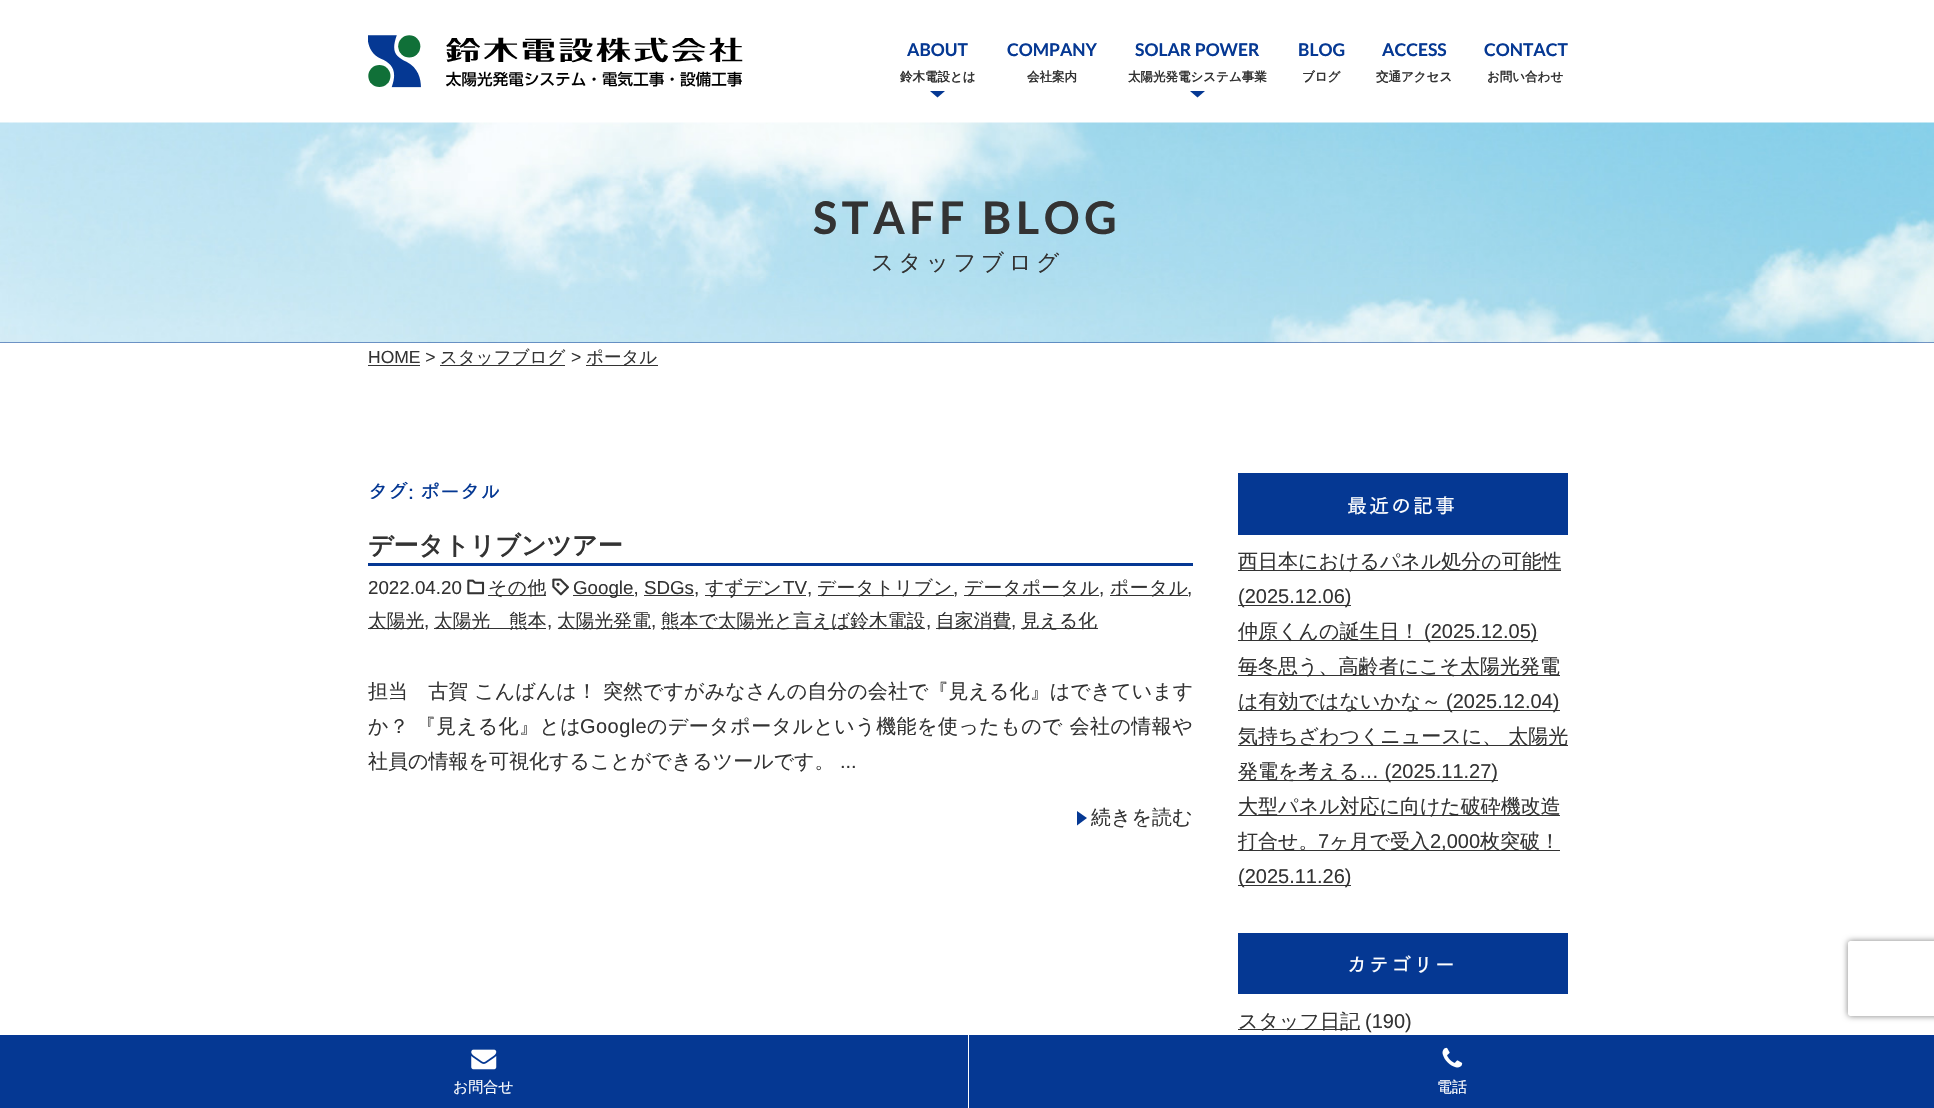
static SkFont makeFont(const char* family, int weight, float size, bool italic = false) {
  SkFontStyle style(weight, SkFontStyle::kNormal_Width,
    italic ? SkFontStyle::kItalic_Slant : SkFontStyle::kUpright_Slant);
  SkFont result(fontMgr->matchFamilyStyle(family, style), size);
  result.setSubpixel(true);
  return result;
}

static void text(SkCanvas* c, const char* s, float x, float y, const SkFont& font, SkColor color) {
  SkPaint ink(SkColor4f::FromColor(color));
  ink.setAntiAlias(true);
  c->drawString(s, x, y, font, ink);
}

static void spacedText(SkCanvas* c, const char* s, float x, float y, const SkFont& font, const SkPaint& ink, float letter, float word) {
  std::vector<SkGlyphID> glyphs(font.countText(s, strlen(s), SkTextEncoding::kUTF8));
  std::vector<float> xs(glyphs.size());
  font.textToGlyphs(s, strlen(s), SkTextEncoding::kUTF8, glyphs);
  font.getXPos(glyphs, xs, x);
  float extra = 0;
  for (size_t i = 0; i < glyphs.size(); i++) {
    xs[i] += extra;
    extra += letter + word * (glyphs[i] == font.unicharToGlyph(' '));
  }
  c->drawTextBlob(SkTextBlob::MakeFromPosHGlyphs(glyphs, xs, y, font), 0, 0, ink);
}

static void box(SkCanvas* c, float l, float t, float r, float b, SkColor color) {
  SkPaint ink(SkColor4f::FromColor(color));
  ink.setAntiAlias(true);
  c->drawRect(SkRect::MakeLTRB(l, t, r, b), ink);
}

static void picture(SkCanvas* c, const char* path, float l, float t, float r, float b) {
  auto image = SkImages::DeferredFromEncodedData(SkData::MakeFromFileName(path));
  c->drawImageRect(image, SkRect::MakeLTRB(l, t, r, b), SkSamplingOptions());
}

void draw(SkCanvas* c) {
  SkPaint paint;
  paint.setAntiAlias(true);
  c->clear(0xffffffff);
  picture(c, "img_01.png", 368, 35, 743, 88);
  SkFont face1 = makeFont("Lato", 700, 17.5f);
  text(c, "ABOUT", 907, 56, face1, 0xff053893);
  SkFont face2 = makeFont("WenQuanYi Zen Hei", 700, 12.5f);
  text(c, "鈴木電設とは", 900, 81, face2, 0xff333333);
  paint.setColor(0xff053893);
  c->drawPath(SkPathBuilder().moveTo(930, 91).lineTo(945, 91).lineTo(937.5f, 97.5f).close().detach(), paint);
  text(c, "COMPANY", 1007, 56, face1, 0xff053893);
  text(c, "会社案内", 1027, 81, face2, 0xff333333);
  text(c, "SOLAR POWER", 1135, 56, face1, 0xff053893);
  text(c, "太陽光発電システム事業", 1128, 81, face2, 0xff333333);
  c->drawPath(SkPathBuilder().moveTo(1190, 91).lineTo(1205, 91).lineTo(1197.5f, 97.5f).close().detach(), paint);
  text(c, "BLOG", 1298, 56, face1, 0xff053893);
  text(c, "ブログ", 1302, 81, face2, 0xff333333);
  text(c, "ACCESS", 1382, 56, face1, 0xff053893);
  text(c, "交通アクセス", 1376, 81, face2, 0xff333333);
  text(c, "CONTACT", 1484, 56, face1, 0xff053893);
  text(c, "お問い合わせ", 1487, 81, face2, 0xff333333);
  box(c, 0, 342, 1934, 343, 0xff053893);
  picture(c, "img_02.png", 0, 122, 1934, 343);
  SkFont face3 = makeFont("Lato", 700, 45);
  paint.setColor(0xff333333);
  spacedText(c, "STAFF BLOG", 813, 234, face3, paint, 4.5f, 0);
  SkFont face4 = makeFont("WenQuanYi Zen Hei", 500, 22.5f);
  spacedText(c, "スタッフブログ", 871, 270, face4, paint, 4.5f, 0);
  SkFont face5 = makeFont("Liberation Sans", 400, 17.5f);
  text(c, "HOME >", 368, 363, face5, 0xff333333);
  box(c, 368, 365, 420, 366, 0xff333333);
  box(c, 440, 365, 565, 366, 0xff333333);
  SkFont face6 = makeFont("WenQuanYi Zen Hei", 500, 17.5f);
  text(c, "スタッフブログ", 440, 363, face6, 0xff333333);
  text(c, ">", 571, 363, face5, 0xff333333);
  box(c, 586, 365, 658, 366, 0xff333333);
  text(c, "ポータル", 586, 363, face6, 0xff333333);
  SkFont face7 = makeFont("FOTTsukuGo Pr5", 600, 20);
  text(c, "タグ: ポータル", 368, 499, face7, 0xff053893);
  box(c, 368, 563, 1193, 566, 0xff053893);
  SkFont face8 = makeFont("WenQuanYi Zen Hei", 700, 25);
  text(c, "データトリブンツアー", 368, 554, face8, 0xff333333);
  SkFont face9 = makeFont("Liberation Sans", 400, 18.75f);
  text(c, "2022.04.20", 368, 594, face9, 0xff333333);
  picture(c, "img_03.png", 467, 579, 485, 595);
  box(c, 488, 595, 546, 596, 0xff333333);
  SkFont face10 = makeFont("WenQuanYi Zen Hei", 500, 18.75f);
  spacedText(c, "その他", 488, 594, face10, paint, 0.5f, 0);
  picture(c, "img_04.png", 552, 578, 569, 596);
  box(c, 573, 595, 634, 596, 0xff333333);
  text(c, "Google, SDGs,", 573, 594, face9, 0xff333333);
  box(c, 644, 595, 694, 596, 0xff333333);
  box(c, 705, 595, 806, 596, 0xff333333);
  text(c, "すずデン", 705, 594, face10, 0xff333333);
  text(c, "TV", 783, 594, face9, 0xff333333);
  box(c, 818, 595, 954, 596, 0xff333333);
  spacedText(c, "データトリブン", 817, 594, face10, paint, 0.25f, 0);
  box(c, 964, 595, 1099, 596, 0xff333333);
  spacedText(c, "データポータル", 964, 594, face10, paint, 0.25f, 0);
  box(c, 1110, 595, 1188, 596, 0xff333333);
  spacedText(c, "ポータル", 1110, 594, face10, paint, 0.5f, 0);
  text(c, ",", 807, 594, face9, 0xff333333);
  text(c, ",", 953, 594, face9, 0xff333333);
  text(c, ",", 1099, 594, face9, 0xff333333);
  text(c, ",", 1187, 594, face9, 0xff333333);
  box(c, 368, 628, 424, 629, 0xff333333);
  text(c, "太陽光", 368, 627, face10, 0xff333333);
  text(c, ",", 424, 627, face9, 0xff333333);
  box(c, 434, 628, 546, 629, 0xff333333);
  text(c, "太陽光　熊本", 434, 627, face10, 0xff333333);
  text(c, ",", 547, 627, face9, 0xff333333);
  box(c, 558, 628, 651, 629, 0xff333333);
  text(c, "太陽光発電", 557, 627, face10, 0xff333333);
  text(c, ",", 651, 627, face9, 0xff333333);
  box(c, 661, 628, 925, 629, 0xff333333);
  text(c, "熊本で太陽光と言えば鈴木電設", 661, 627, face10, 0xff333333);
  text(c, ",", 926, 627, face9, 0xff333333);
  box(c, 936, 628, 1011, 629, 0xff333333);
  text(c, "自家消費", 936, 627, face10, 0xff333333);
  text(c, ",", 1011, 627, face9, 0xff333333);
  box(c, 1021, 628, 1098, 629, 0xff333333);
  text(c, "見える化", 1021, 627, face10, 0xff333333);
  SkFont face11 = makeFont("WenQuanYi Zen Hei", 500, 20);
  spacedText(c, "担当　古賀 こんばんは！ 突然ですがみなさんの自分の会社で『見える化』はできています", 368, 698, face11, paint, 0.05f, 0);
  spacedText(c, "か？ 『見える化』とは", 368, 733, face11, paint, 0.45f, 0);
  SkFont face12 = makeFont("Liberation Sans", 400, 20);
  spacedText(c, "Google", 580, 733, face12, paint, 0.45f, 0);
  spacedText(c, "のデータポータルという機能を使ったもので 会社の情報や", 647, 733, face11, paint, 0.45f, 0);
  text(c, "社員の情報を可視化することができるツールです。", 368, 768, face11, 0xff333333);
  text(c, "...", 840, 768, face12, 0xff333333);
  paint.setColor(0xff053893);
  c->drawPath(SkPathBuilder().moveTo(1077, 811).lineTo(1087, 818).lineTo(1077, 825.5f).close().detach(), paint);
  text(c, "続きを読む", 1091, 824, face11, 0xff333333);
  box(c, 1238, 473, 1568, 535, 0xff053893);
  paint.setColor(0xffffffff);
  spacedText(c, "最近の記事", 1347, 513, face7, paint, 2, 0);
  box(c, 1238, 570, 1561, 571, 0xff333333);
  text(c, "西日本におけるパネル処分の可能性", 1238, 568, face11, 0xff333333);
  box(c, 1238, 605, 1351, 606, 0xff333333);
  text(c, "(2025.12.06)", 1238, 603, face12, 0xff333333);
  box(c, 1238, 640, 1538, 641, 0xff333333);
  text(c, "仲原くんの誕生日！", 1238, 638, face11, 0xff333333);
  text(c, "(2025.12.05)", 1424, 638, face12, 0xff333333);
  box(c, 1238, 675, 1560, 676, 0xff333333);
  text(c, "毎冬思う、高齢者にこそ太陽光発電", 1238, 673, face11, 0xff333333);
  box(c, 1238, 710, 1560, 711, 0xff333333);
  text(c, "は有効ではないかな～", 1238, 708, face11, 0xff333333);
  text(c, "(2025.12.04)", 1446, 708, face12, 0xff333333);
  box(c, 1238, 745, 1568, 746, 0xff333333);
  text(c, "気持ちざわつくニュースに、 太陽光", 1238, 743, face11, 0xff333333);
  box(c, 1238, 780, 1498, 781, 0xff333333);
  text(c, "発電を考える", 1238, 778, face11, 0xff333333);
  text(c, "… (2025.11.27)", 1359, 778, face12, 0xff333333);
  box(c, 1238, 815, 1560, 816, 0xff333333);
  text(c, "大型パネル対応に向けた破砕機改造", 1238, 813, face11, 0xff333333);
  box(c, 1238, 850, 1560, 851, 0xff333333);
  text(c, "打合せ。", 1238, 848, face11, 0xff333333);
  text(c, "7", 1318, 848, face12, 0xff333333);
  text(c, "ヶ月で受入", 1329, 848, face11, 0xff333333);
  text(c, "2,000", 1430, 848, face12, 0xff333333);
  text(c, "枚突破！", 1480, 848, face11, 0xff333333);
  box(c, 1238, 885, 1351, 886, 0xff333333);
  text(c, "(2025.11.26)", 1238, 883, face12, 0xff333333);
  box(c, 1238, 933, 1568, 994, 0xff053893);
  spacedText(c, "カテゴリー", 1347, 972, face7, paint, 2, 0);
  box(c, 1238, 1029, 1360, 1030, 0xff333333);
  text(c, "スタッフ日記", 1238, 1028, face11, 0xff333333);
  text(c, "(190)", 1365, 1028, face12, 0xff333333);
  box(c, 0, 1035, 1934, 1108, 0xff053893);
  picture(c, "img_05.png", 471, 1049, 497, 1070);
  SkFont face13 = makeFont("WenQuanYi Zen Hei", 500, 15);
  text(c, "お問合せ", 453, 1092, face13, 0xffffffff);
  box(c, 968, 1035, 969, 1108, 0xffffffff);
  picture(c, "img_06.png", 1442, 1047, 1463, 1068);
  text(c, "電話", 1437, 1092, face13, 0xffffffff);
  c->save();
  c->clipPath(SkPathBuilder(SkPathFillType::kEvenOdd).moveTo(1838, 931).lineTo(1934, 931).lineTo(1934, 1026).lineTo(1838, 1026).close().moveTo(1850.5f, 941).lineTo(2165.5f, 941).cubicTo(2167, 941, 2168, 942, 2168, 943.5f).lineTo(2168, 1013.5f).cubicTo(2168, 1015, 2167, 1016, 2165.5f, 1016).lineTo(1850.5f, 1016).cubicTo(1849, 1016, 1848, 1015, 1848, 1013.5f).lineTo(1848, 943.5f).cubicTo(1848, 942, 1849, 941, 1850.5f, 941).close().detach(), true);
  paint.setColor(0xff808080);
  paint.setMaskFilter(SkMaskFilter::MakeBlur(kNormal_SkBlurStyle, 3));
  c->drawRoundRect(SkRect::MakeLTRB(1848, 941, 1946, 1016), 2.5f, 2.5f, paint);
  paint.setMaskFilter(nullptr);
  c->restore();
}
